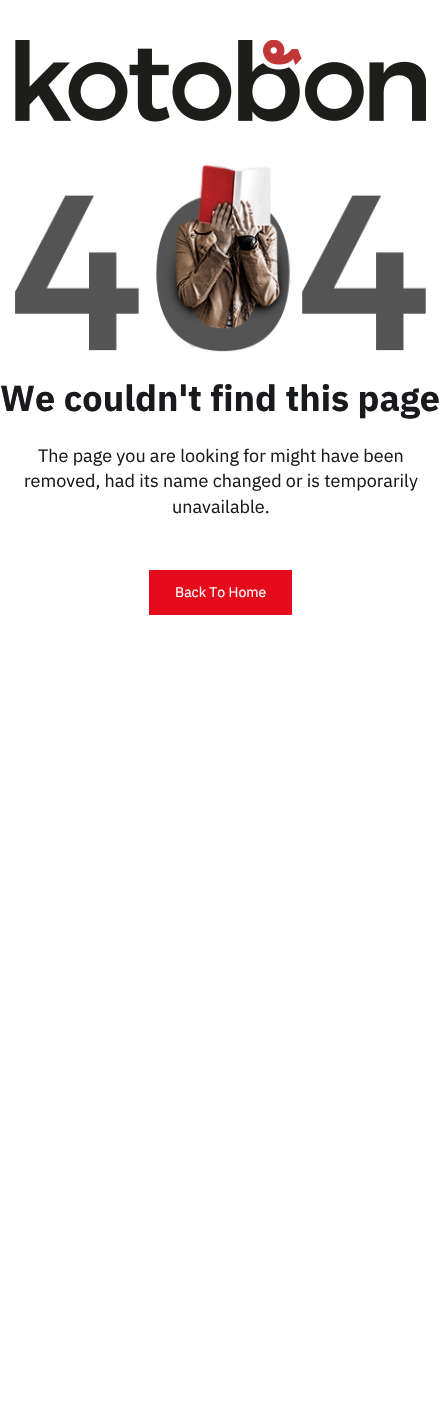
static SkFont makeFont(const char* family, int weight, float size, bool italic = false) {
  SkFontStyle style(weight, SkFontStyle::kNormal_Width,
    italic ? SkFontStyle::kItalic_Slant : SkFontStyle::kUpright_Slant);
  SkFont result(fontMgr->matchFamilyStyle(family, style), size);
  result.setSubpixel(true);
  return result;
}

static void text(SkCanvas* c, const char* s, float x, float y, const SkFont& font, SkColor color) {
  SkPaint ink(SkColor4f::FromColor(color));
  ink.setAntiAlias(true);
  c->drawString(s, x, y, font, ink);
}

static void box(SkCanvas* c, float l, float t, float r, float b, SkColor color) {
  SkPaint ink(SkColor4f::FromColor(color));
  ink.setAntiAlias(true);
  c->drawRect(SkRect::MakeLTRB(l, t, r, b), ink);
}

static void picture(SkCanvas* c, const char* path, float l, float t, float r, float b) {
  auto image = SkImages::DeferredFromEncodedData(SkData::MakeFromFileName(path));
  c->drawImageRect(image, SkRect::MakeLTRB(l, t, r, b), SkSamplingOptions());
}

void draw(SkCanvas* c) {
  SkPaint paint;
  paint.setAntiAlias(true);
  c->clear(0xffffffff);
  picture(c, "img_01.png", 15, 40, 426, 122);
  picture(c, "img_02.png", 15, 164, 426, 352);
  SkFont face1 = makeFont("IBM Plex Sans", 700, 36);
  text(c, "We couldn't find this page", 0, 411, face1, 0xff181a1d);
  SkFont face2 = makeFont("IBM Plex Sans", 400, 18);
  text(c, "The page you are looking for might have been", 38, 462, face2, 0xff181a1d);
  text(c, "removed, had its name changed or is temporarily", 24, 487, face2, 0xff181a1d);
  text(c, "unavailable.", 172, 513, face2, 0xff181a1d);
  box(c, 149, 570, 292, 615, 0xffe50b1d);
  SkFont face3 = makeFont("IBM Plex Sans", 400, 14);
  text(c, "Back To Home", 175, 597, face3, 0xffffffff);
}
